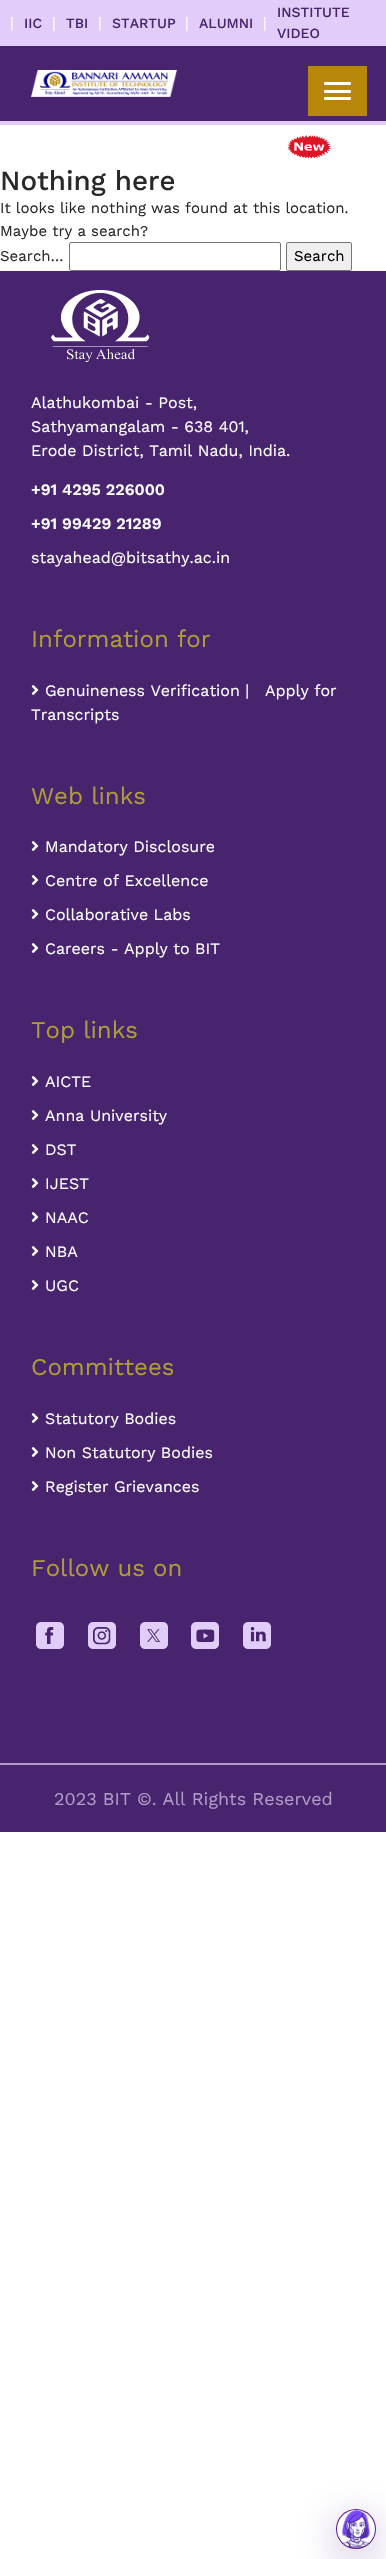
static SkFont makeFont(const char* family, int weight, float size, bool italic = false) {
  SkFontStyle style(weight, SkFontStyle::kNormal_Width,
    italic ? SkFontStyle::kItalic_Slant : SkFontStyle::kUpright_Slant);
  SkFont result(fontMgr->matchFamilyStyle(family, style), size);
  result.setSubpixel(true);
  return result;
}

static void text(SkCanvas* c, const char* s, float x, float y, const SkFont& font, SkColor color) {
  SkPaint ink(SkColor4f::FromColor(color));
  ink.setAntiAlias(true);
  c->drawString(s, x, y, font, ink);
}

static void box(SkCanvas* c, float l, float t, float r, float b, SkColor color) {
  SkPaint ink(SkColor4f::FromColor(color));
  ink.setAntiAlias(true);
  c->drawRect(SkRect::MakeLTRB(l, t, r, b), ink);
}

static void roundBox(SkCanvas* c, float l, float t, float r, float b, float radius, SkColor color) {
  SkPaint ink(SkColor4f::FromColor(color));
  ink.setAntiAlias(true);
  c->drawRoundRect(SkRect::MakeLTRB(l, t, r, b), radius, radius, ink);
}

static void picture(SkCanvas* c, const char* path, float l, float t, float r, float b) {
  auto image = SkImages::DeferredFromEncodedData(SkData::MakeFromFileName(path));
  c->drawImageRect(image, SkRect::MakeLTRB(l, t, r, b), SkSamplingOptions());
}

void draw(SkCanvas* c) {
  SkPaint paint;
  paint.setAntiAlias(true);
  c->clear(0xffffffff);
  box(c, 0, 0, 386, 46, 0xffe2ccf9);
  SkFont face1 = makeFont("Work Sans", 400, 15);
  text(c, "|", 10, 28, face1, 0xffffffff);
  SkFont face2 = makeFont("Work Sans", 500, 14);
  text(c, "IIC", 24, 28, face2, 0xff48246e);
  text(c, "|", 52, 28, face1, 0xffffffff);
  text(c, "TBI", 66, 28, face2, 0xff48246e);
  text(c, "|", 98, 28, face1, 0xffffffff);
  text(c, "STARTUP", 112, 28, face2, 0xff48246e);
  text(c, "|", 185, 28, face1, 0xffffffff);
  text(c, "ALUMNI", 199, 28, face2, 0xff48246e);
  text(c, "|", 263, 28, face1, 0xffffffff);
  text(c, "INSTITUTE", 277, 17, face2, 0xff48246e);
  text(c, "VIDEO", 277, 38, face2, 0xff48246e);
  box(c, 0, 46, 386, 121, 0xff48246e);
  picture(c, "img_01.png", 31, 70, 177, 97);
  box(c, 308, 66, 367, 116, 0xffb8860b);
  roundBox(c, 324, 82, 351, 85, 1, 0xffffffff);
  roundBox(c, 324, 90, 351, 93, 1, 0xffffffff);
  roundBox(c, 324, 97, 351, 100, 1, 0xffffffff);
  box(c, 0, 121, 386, 125, 0xffe2ccf9);
  picture(c, "img_02.png", 287, 135, 331, 159);
  SkFont face3 = makeFont("Work Sans", 500, 27.75f);
  text(c, "Nothing here", 0, 190, face3, 0xff292929);
  text(c, "It looks like nothing was found at this location.", 0, 213, face1, 0xff292929);
  text(c, "Maybe try a search?", 0, 236, face1, 0xff292929);
  text(c, "Search…", 0, 261, face1, 0xff292929);
  paint.setStyle(SkPaint::kStroke_Style);
  paint.setStrokeWidth(1);
  paint.setColor(0xff767676);
  c->drawRoundRect(SkRect::MakeLTRB(69.5f, 242.5f, 280.5f, 270.5f), 1.5f, 1.5f, paint);
  paint.setStyle(SkPaint::kFill_Style);
  paint.setColor(0xffefefef);
  c->drawRoundRect(SkRect::MakeLTRB(286.5f, 242.5f, 351.5f, 270.5f), 1.5f, 1.5f, paint);
  paint.setStyle(SkPaint::kStroke_Style);
  paint.setColor(0xff767676);
  c->drawRoundRect(SkRect::MakeLTRB(286.5f, 242.5f, 351.5f, 270.5f), 1.5f, 1.5f, paint);
  text(c, "Search", 294, 261, face1, 0xff000000);
  box(c, 0, 271, 386, 1832, 0xff48246e);
  picture(c, "img_03.png", 51, 290, 150, 362);
  SkFont face4 = makeFont("Work Sans", 400, 16);
  text(c, "Alathukombai - Post,", 31, 408, face4, 0xffffffff);
  text(c, "Sathyamangalam - 638 401,", 31, 432, face4, 0xffffffff);
  text(c, "Erode District, Tamil Nadu, India.", 31, 456, face4, 0xffffffff);
  SkFont face5 = makeFont("Work Sans", 600, 16);
  text(c, "+91 4295 226000", 31, 495, face5, 0xffffffff);
  text(c, "+91 99429 21289", 31, 529, face5, 0xffffffff);
  text(c, "stayahead@bitsathy.ac.in", 31, 563, face4, 0xffffffff);
  SkFont face6 = makeFont("Work Sans", 400, 24);
  text(c, "Information for", 31, 647, face6, 0xffae9e38);
  picture(c, "img_04.png", 31, 685, 39, 695);
  text(c, "Genuineness Verification |", 45, 696, face4, 0xffffffff);
  text(c, "Apply for", 265, 696, face4, 0xffffffff);
  text(c, "Transcripts", 31, 720, face4, 0xffffffff);
  text(c, "Web links", 31, 804, face6, 0xffae9e38);
  picture(c, "img_04.png", 31, 841, 39, 851);
  text(c, "Mandatory Disclosure", 45, 852, face4, 0xffffffff);
  picture(c, "img_04.png", 31, 875, 39, 885);
  text(c, "Centre of Excellence", 45, 886, face4, 0xffffffff);
  picture(c, "img_04.png", 31, 909, 39, 919);
  text(c, "Collaborative Labs", 45, 920, face4, 0xffffffff);
  picture(c, "img_04.png", 31, 943, 39, 953);
  text(c, "Careers - Apply to BIT", 45, 954, face4, 0xffffffff);
  text(c, "Top links", 31, 1038, face6, 0xffae9e38);
  picture(c, "img_04.png", 31, 1076, 39, 1086);
  text(c, "AICTE", 45, 1087, face4, 0xffffffff);
  picture(c, "img_04.png", 31, 1110, 39, 1120);
  text(c, "Anna University", 45, 1121, face4, 0xffffffff);
  picture(c, "img_04.png", 31, 1144, 39, 1154);
  text(c, "DST", 45, 1155, face4, 0xffffffff);
  picture(c, "img_04.png", 31, 1178, 39, 1188);
  text(c, "IJEST", 45, 1189, face4, 0xffffffff);
  picture(c, "img_04.png", 31, 1212, 39, 1222);
  text(c, "NAAC", 45, 1223, face4, 0xffffffff);
  picture(c, "img_04.png", 31, 1246, 39, 1256);
  text(c, "NBA", 45, 1257, face4, 0xffffffff);
  picture(c, "img_04.png", 31, 1280, 39, 1290);
  text(c, "UGC", 45, 1291, face4, 0xffffffff);
  text(c, "Committees", 31, 1375, face6, 0xffae9e38);
  picture(c, "img_04.png", 31, 1413, 39, 1423);
  text(c, "Statutory Bodies", 45, 1424, face4, 0xffffffff);
  picture(c, "img_04.png", 31, 1447, 39, 1457);
  text(c, "Non Statutory Bodies", 45, 1458, face4, 0xffffffff);
  picture(c, "img_04.png", 31, 1481, 39, 1491);
  text(c, "Register Grievances", 45, 1492, face4, 0xffffffff);
  text(c, "Follow us on", 31, 1576, face6, 0xffae9e38);
  picture(c, "img_05.png", 36, 1622, 64, 1649);
  picture(c, "img_06.png", 88, 1622, 116, 1649);
  picture(c, "img_07.png", 140, 1622, 168, 1649);
  picture(c, "img_08.png", 191, 1622, 219, 1649);
  picture(c, "img_09.png", 243, 1622, 271, 1649);
  box(c, 0, 1763, 386, 1765, 0xffb09cc7);
  SkFont face7 = makeFont("Work Sans", 400, 18);
  text(c, "2023 BIT ©. All Rights Reserved", 54, 1805, face7, 0xffb09cc7);
  paint.setStyle(SkPaint::kFill_Style);
  paint.setColor(0x57581c87);
  paint.setMaskFilter(SkMaskFilter::MakeBlur(kNormal_SkBlurStyle, 20));
  c->drawRoundRect(SkRect::MakeLTRB(336, 2519, 376, 2559), 20, 20, paint);
  paint.setMaskFilter(nullptr);
  paint.setColor(0xff581c87);
  c->drawCircle(356, 2529, 20, paint);
  picture(c, "img_10.png", 337, 2510, 375, 2548);
}
